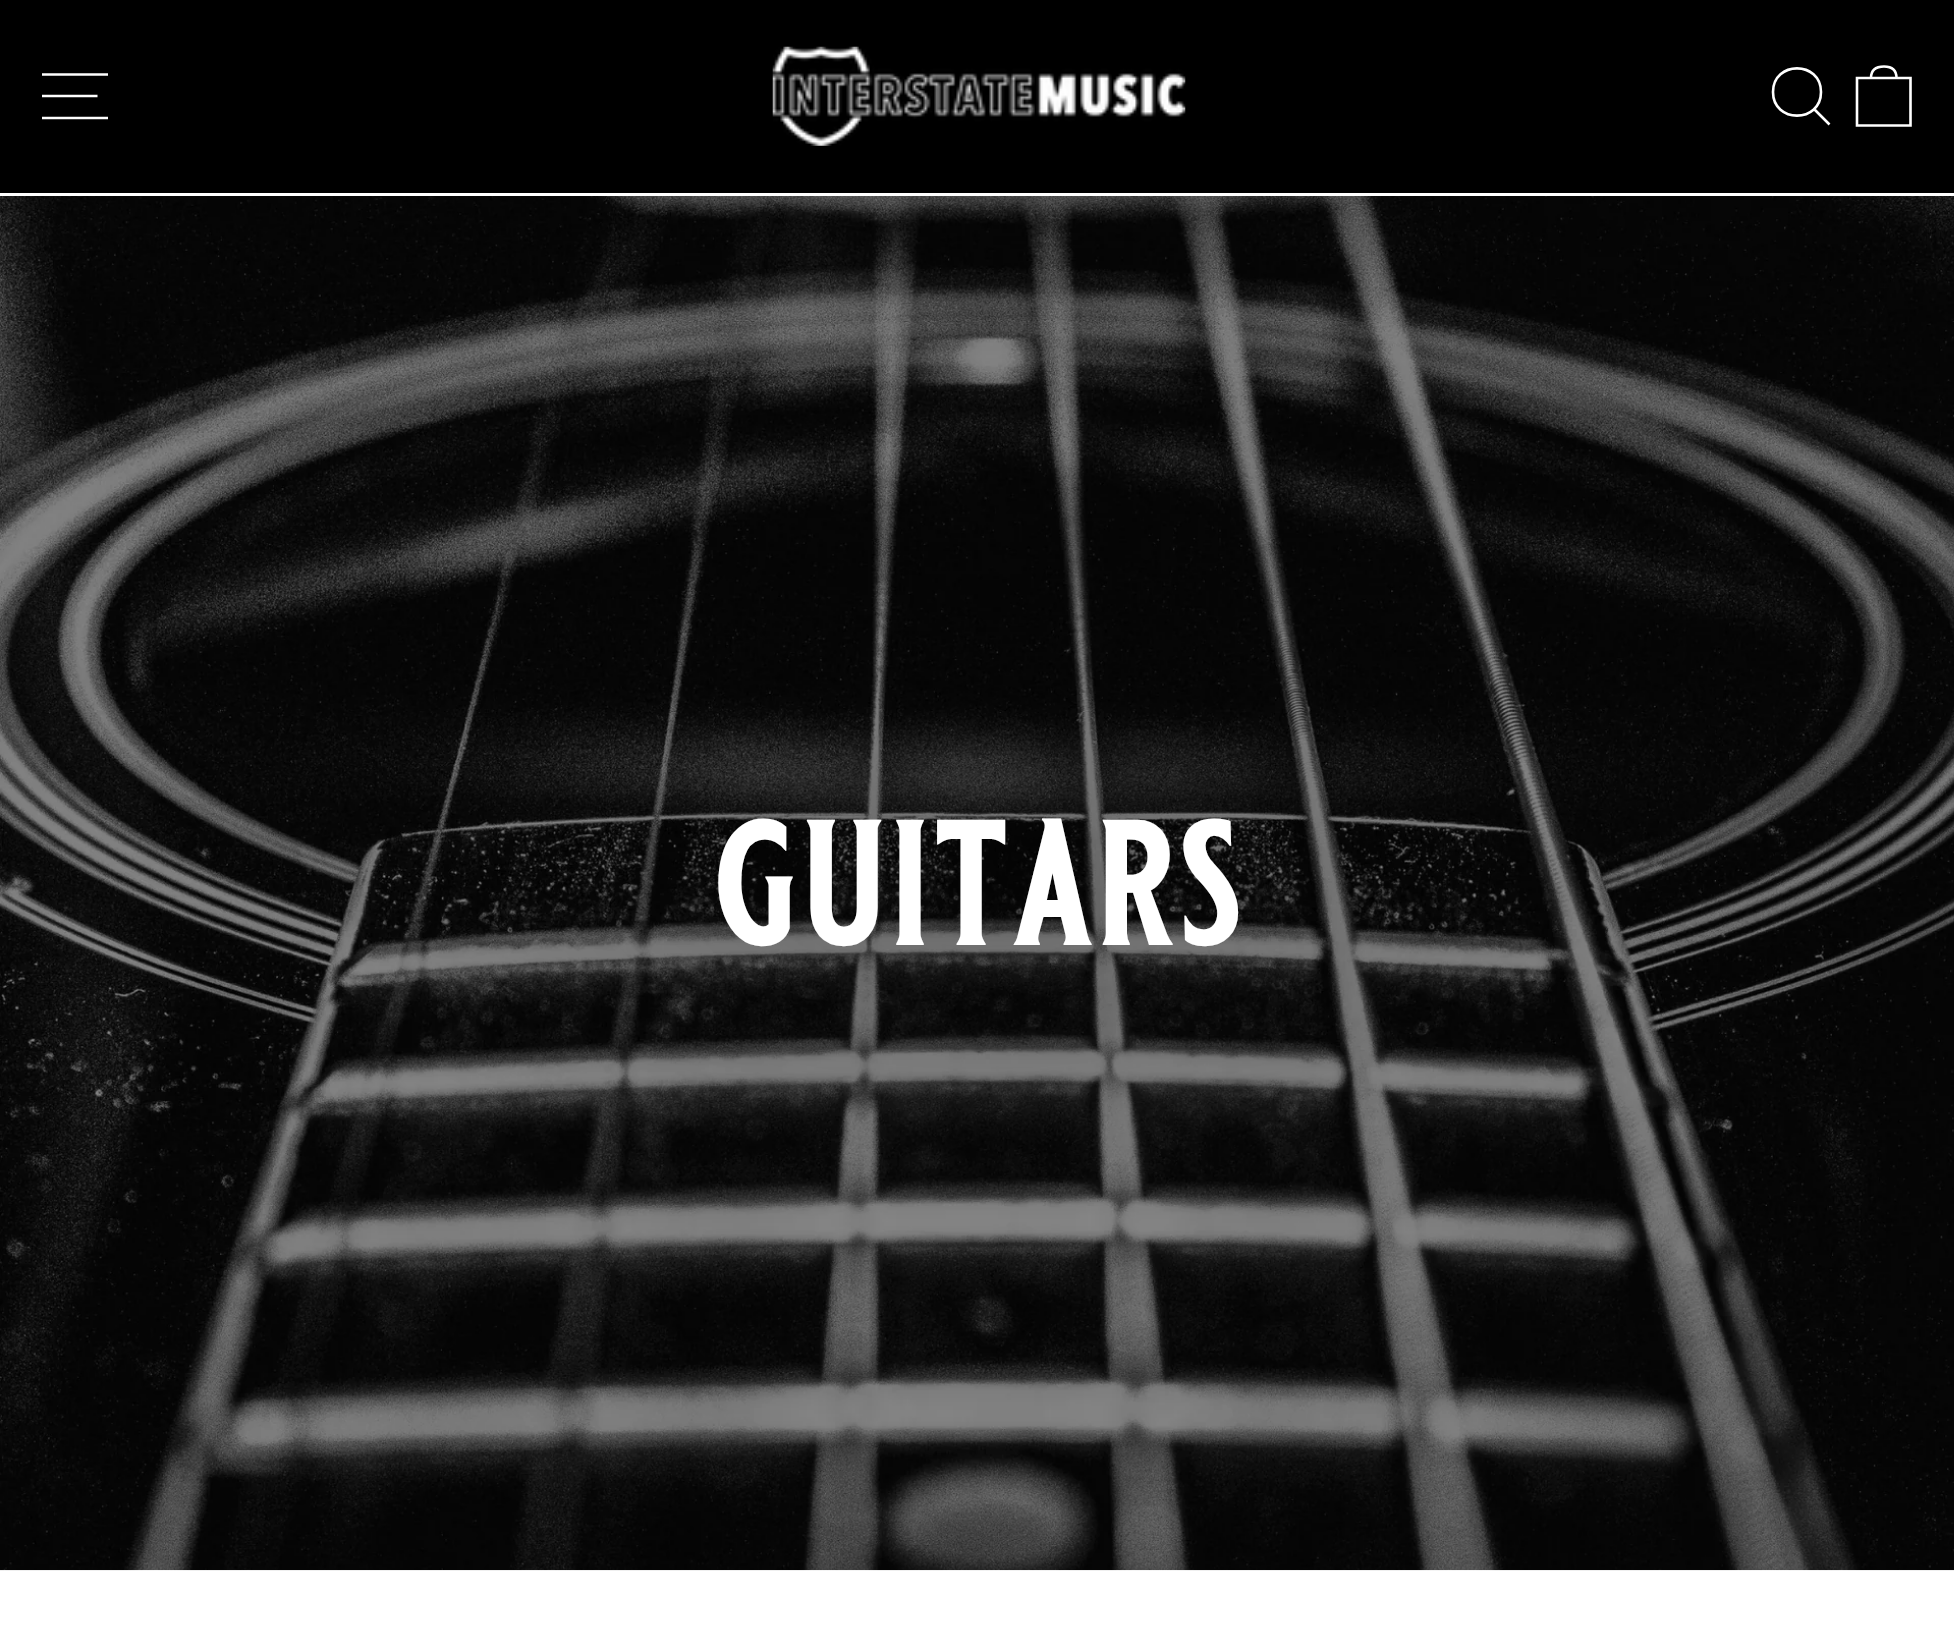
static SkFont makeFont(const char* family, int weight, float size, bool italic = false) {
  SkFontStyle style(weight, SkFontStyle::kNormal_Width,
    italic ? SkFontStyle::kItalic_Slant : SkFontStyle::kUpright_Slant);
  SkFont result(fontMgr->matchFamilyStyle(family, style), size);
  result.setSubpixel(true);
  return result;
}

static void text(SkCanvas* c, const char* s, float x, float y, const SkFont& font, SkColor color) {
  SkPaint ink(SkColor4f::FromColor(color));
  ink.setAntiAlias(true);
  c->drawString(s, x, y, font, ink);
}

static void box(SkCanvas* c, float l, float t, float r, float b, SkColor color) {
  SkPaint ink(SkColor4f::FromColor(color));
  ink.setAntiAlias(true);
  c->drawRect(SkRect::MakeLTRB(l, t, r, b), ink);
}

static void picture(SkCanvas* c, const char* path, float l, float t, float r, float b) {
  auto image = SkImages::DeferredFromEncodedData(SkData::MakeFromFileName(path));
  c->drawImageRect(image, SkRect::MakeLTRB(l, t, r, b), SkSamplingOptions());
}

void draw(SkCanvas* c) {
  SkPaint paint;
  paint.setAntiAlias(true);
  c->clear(0xffffffff);
  box(c, 0, 0, 1954, 193, 0xff000000);
  paint.setStyle(SkPaint::kStroke_Style);
  paint.setStrokeWidth(2.6f);
  paint.setColor(0xffffffff);
  c->drawPath(SkPathBuilder().moveTo(42, 74.5f).lineTo(108, 74.5f).moveTo(42, 96).lineTo(97.5f, 96).moveTo(42, 118).lineTo(108, 118).detach(), paint);
  picture(c, "img_01.png", 772, 46, 1186, 146);
  c->drawPath(SkPathBuilder().moveTo(1821, 92).cubicTo(1821, 123.5f, 1773, 123.5f, 1773, 92).cubicTo(1773, 60.5f, 1821, 60.5f, 1821, 92).close().moveTo(1829.5f, 124.5f).lineTo(1814, 109).detach(), paint);
  c->drawPath(SkPathBuilder().moveTo(1857, 78).lineTo(1910.5f, 78).lineTo(1910.5f, 125.5f).lineTo(1857, 125.5f).close().moveTo(1871, 78).cubicTo(1871, 69, 1877, 66.5f, 1884, 66.5f).cubicTo(1890.5f, 66.5f, 1896.5f, 69, 1896.5f, 78).detach(), paint);
  picture(c, "img_02.png", 0, 196, 1954, 1571);
  SkFont face1 = makeFont("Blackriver", 700, 179);
  text(c, "guitars", 713, 945, face1, 0xffffffff);
}
